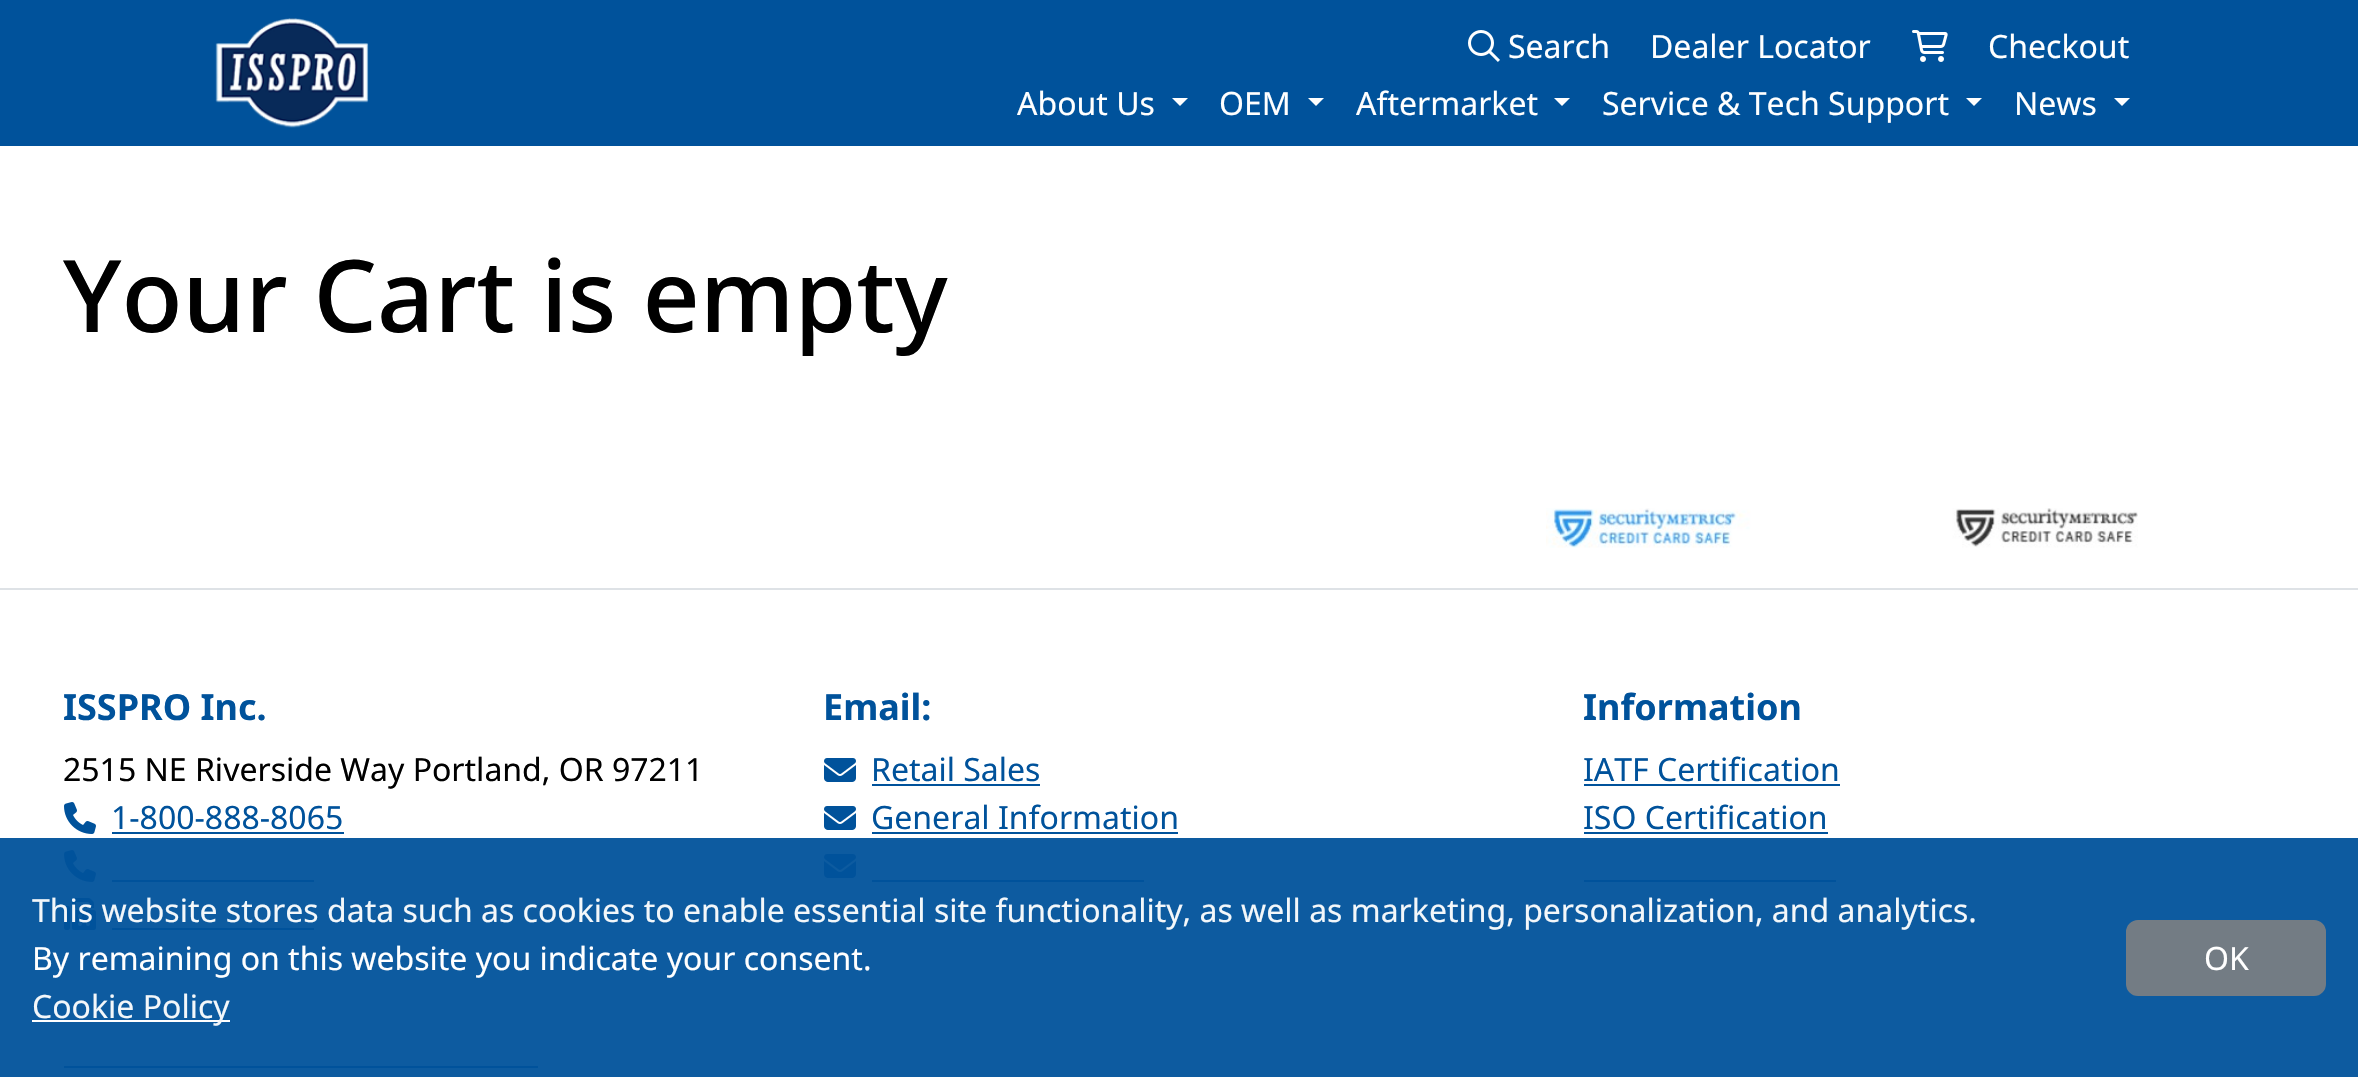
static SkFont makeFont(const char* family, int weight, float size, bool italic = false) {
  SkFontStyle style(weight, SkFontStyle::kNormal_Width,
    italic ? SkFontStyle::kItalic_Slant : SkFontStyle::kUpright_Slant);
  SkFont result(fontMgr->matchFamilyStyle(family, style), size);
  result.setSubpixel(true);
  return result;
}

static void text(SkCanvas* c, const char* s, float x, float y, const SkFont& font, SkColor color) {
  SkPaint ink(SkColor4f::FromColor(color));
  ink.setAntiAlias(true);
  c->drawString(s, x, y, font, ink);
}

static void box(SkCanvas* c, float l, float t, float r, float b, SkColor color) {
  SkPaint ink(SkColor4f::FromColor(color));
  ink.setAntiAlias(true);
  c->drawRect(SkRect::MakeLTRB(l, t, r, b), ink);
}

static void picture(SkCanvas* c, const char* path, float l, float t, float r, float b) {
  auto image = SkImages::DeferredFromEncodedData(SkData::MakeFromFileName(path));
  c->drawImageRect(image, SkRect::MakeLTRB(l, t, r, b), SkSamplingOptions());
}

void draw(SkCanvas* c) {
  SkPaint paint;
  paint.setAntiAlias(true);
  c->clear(0xffffffff);
  box(c, 0, 838, 2358, 1077, 0xff0d5ba0);
  box(c, 0, 0, 2358, 146, 0xff00529b);
  picture(c, "img_01.png", 215, 18, 369, 128);
  picture(c, "img_02.png", 1468, 30, 1500, 62);
  SkFont face1 = makeFont("Noto Sans", 400, 32);
  text(c, "Search", 1508, 58, face1, 0xffffffff);
  text(c, "Dealer Locator", 1650, 58, face1, 0xffffffff);
  picture(c, "img_03.png", 1912, 30, 1948, 62);
  text(c, "Checkout", 1988, 58, face1, 0xffffffff);
  text(c, "About Us", 1017, 115, face1, 0xffffffff);
  paint.setColor(0xffffffff);
  c->drawPath(SkPathBuilder().moveTo(1172, 98).lineTo(1188, 98).lineTo(1180, 106).close().detach(), paint);
  text(c, "OEM", 1219, 115, face1, 0xffffffff);
  c->drawPath(SkPathBuilder().moveTo(1308, 98).lineTo(1324, 98).lineTo(1316, 106).close().detach(), paint);
  text(c, "Aftermarket", 1356, 115, face1, 0xffffffff);
  c->drawPath(SkPathBuilder().moveTo(1554, 98).lineTo(1570, 98).lineTo(1562, 106).close().detach(), paint);
  text(c, "Service & Tech Support", 1602, 115, face1, 0xffffffff);
  c->drawPath(SkPathBuilder().moveTo(1966, 98).lineTo(1982, 98).lineTo(1974, 106).close().detach(), paint);
  text(c, "News", 2014, 115, face1, 0xffffffff);
  c->drawPath(SkPathBuilder().moveTo(2114, 98).lineTo(2130, 98).lineTo(2122, 106).close().detach(), paint);
  SkFont face2 = makeFont("Noto Sans", 500, 100);
  text(c, "Your Cart is empty", 63, 332, face2, 0xff000000);
  picture(c, "img_04.png", 1546, 508, 2138, 548);
  box(c, 0, 588, 2358, 590, 0xffdee2e6);
  SkFont face3 = makeFont("Noto Sans", 700, 36);
  text(c, "ISSPRO Inc.", 63, 720, face3, 0xff00529b);
  text(c, "2515 NE Riverside Way Portland, OR 97211", 63, 781, face1, 0xff000000);
  picture(c, "img_05.png", 64, 802, 96, 834);
  text(c, "1-800-888-8065", 111, 829, face1, 0xff00529b);
  box(c, 112, 832, 344, 834, 0xff00529b);
  picture(c, "img_06.png", 64, 850, 96, 882);
  box(c, 112, 880, 314, 882, 0xff00529b);
  picture(c, "img_07.png", 64, 898, 96, 930);
  box(c, 112, 928, 314, 930, 0xff00529b);
  text(c, "Email:", 823, 720, face3, 0xff00529b);
  picture(c, "img_08.png", 824, 758, 856, 782);
  text(c, "Retail Sales", 871, 781, face1, 0xff00529b);
  box(c, 872, 784, 1040, 786, 0xff00529b);
  picture(c, "img_08.png", 824, 806, 856, 830);
  text(c, "General Information", 871, 829, face1, 0xff00529b);
  box(c, 872, 832, 1178, 834, 0xff00529b);
  picture(c, "img_09.png", 824, 854, 856, 878);
  box(c, 872, 880, 1144, 882, 0xff00529b);
  text(c, "Information", 1583, 720, face3, 0xff00529b);
  text(c, "IATF Certification", 1583, 781, face1, 0xff00529b);
  box(c, 1584, 784, 1840, 786, 0xff00529b);
  text(c, "ISO Certification", 1583, 829, face1, 0xff00529b);
  box(c, 1584, 832, 1828, 834, 0xff00529b);
  box(c, 1584, 880, 1836, 882, 0xff00529b);
  box(c, 64, 1066, 538, 1068, 0xff00529b);
  text(c, "This website stores data such as cookies to enable essential site functionality, as well as marketing, personalization, and analytics.", 32, 922, face1, 0xfff3f7fa);
  text(c, "By remaining on this website you indicate your consent.", 32, 970, face1, 0xffffffff);
  box(c, 32, 1020, 230, 1022, 0xffffffff);
  text(c, "Cookie Policy", 32, 1018, face1, 0xfff3f7fa);
  paint.setColor(0xff737c84);
  c->drawRoundRect(SkRect::MakeLTRB(2127, 921, 2325, 995), 11, 11, paint);
  paint.setStyle(SkPaint::kStroke_Style);
  paint.setStrokeWidth(2);
  c->drawRoundRect(SkRect::MakeLTRB(2127, 921, 2325, 995), 11, 11, paint);
  text(c, "OK", 2204, 970, face1, 0xffffffff);
}
